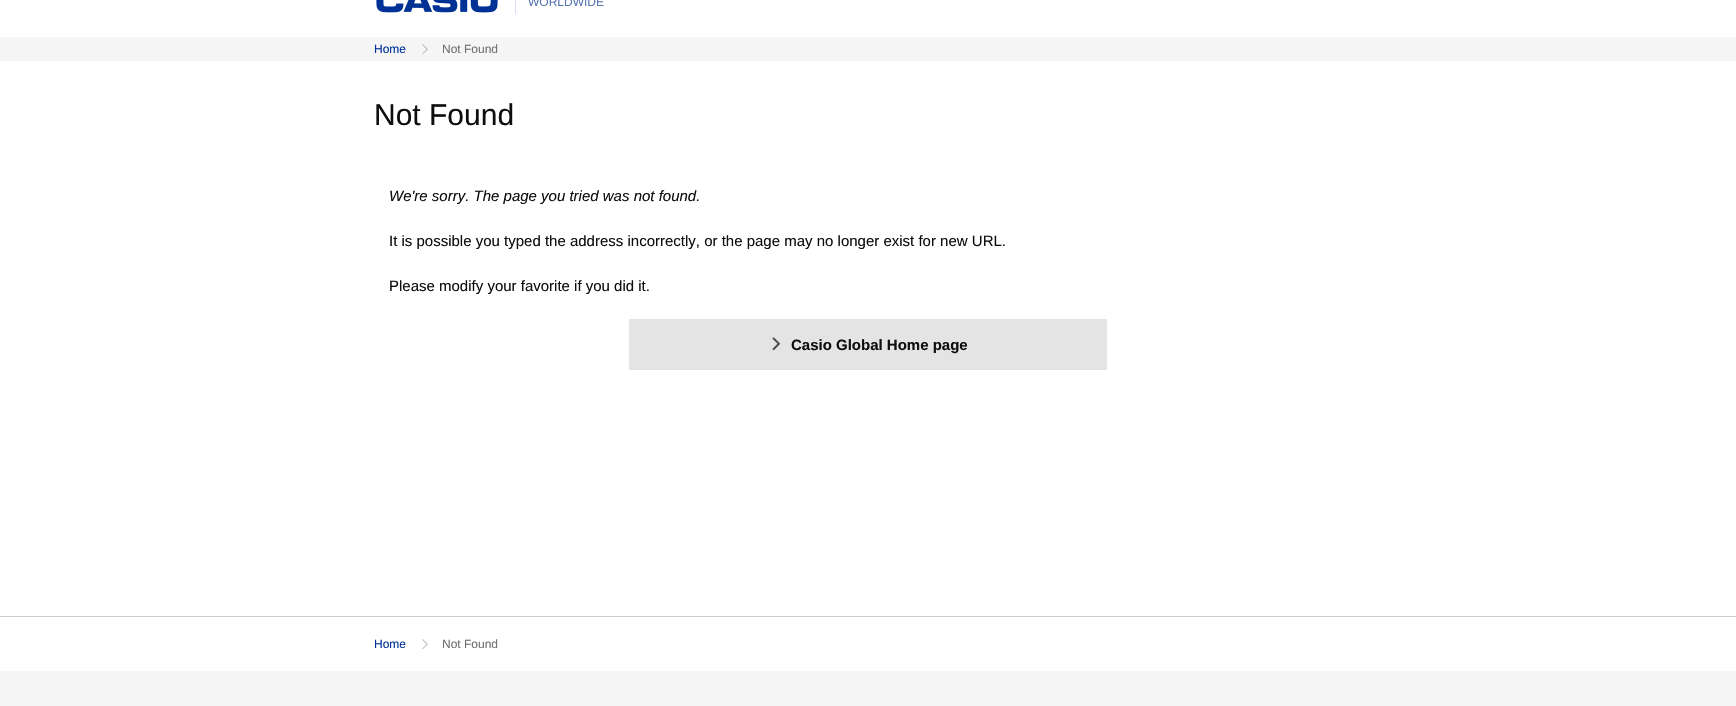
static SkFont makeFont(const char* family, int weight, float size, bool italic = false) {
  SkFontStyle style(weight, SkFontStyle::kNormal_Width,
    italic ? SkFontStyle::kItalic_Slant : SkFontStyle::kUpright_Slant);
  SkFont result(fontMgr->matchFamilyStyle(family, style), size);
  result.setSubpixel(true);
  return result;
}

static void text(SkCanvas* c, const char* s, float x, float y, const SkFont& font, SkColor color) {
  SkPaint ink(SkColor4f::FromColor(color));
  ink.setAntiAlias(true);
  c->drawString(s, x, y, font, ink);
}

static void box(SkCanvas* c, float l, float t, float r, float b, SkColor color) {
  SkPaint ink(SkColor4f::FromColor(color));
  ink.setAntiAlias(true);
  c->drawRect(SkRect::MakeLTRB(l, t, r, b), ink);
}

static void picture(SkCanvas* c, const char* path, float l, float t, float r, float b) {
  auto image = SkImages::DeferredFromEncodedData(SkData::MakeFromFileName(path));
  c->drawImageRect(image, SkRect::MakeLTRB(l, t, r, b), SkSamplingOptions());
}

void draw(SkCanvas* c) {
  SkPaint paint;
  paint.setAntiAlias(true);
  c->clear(0xffffffff);
  picture(c, "img_01.png", 376, 0, 498, 13);
  box(c, 515, 0, 516, 14, 0xffdae0f2);
  SkFont face1 = makeFont("Liberation Sans", 400, 12);
  text(c, "WORLDWIDE", 528, 6, face1, 0xff5977b3);
  box(c, 0, 37, 1736, 61, 0xfff5f5f5);
  text(c, "Home", 374, 53, face1, 0xff003296);
  picture(c, "img_02.png", 422, 44, 428, 55);
  text(c, "Not Found", 442, 53, face1, 0xff707070);
  SkFont face2 = makeFont("Liberation Sans", 400, 30);
  text(c, "Not Found", 374, 125, face2, 0xff100d0d);
  SkFont face3 = makeFont("Liberation Sans", 400, 15, true);
  text(c, "We're sorry. The page you tried was not found.", 389, 201, face3, 0xff100d0d);
  SkFont face4 = makeFont("Liberation Sans", 400, 15);
  text(c, "It is possible you typed the address incorrectly, or the page may no longer exist for new URL.", 389, 246, face4, 0xff100d0d);
  text(c, "Please modify your favorite if you did it.", 389, 291, face4, 0xff100d0d);
  box(c, 629, 319, 1107, 370, 0xffe4e4e4);
  picture(c, "img_03.png", 772, 337, 781, 351);
  SkFont face5 = makeFont("Liberation Sans", 700, 15);
  text(c, "Casio Global Home page", 791, 350, face5, 0xff100d0d);
  box(c, 0, 616, 1736, 617, 0xffcccccc);
  text(c, "Home", 374, 648, face1, 0xff003296);
  picture(c, "img_04.png", 422, 639, 428, 650);
  text(c, "Not Found", 442, 648, face1, 0xff707070);
  box(c, 0, 671, 1736, 706, 0xfff5f5f5);
}
